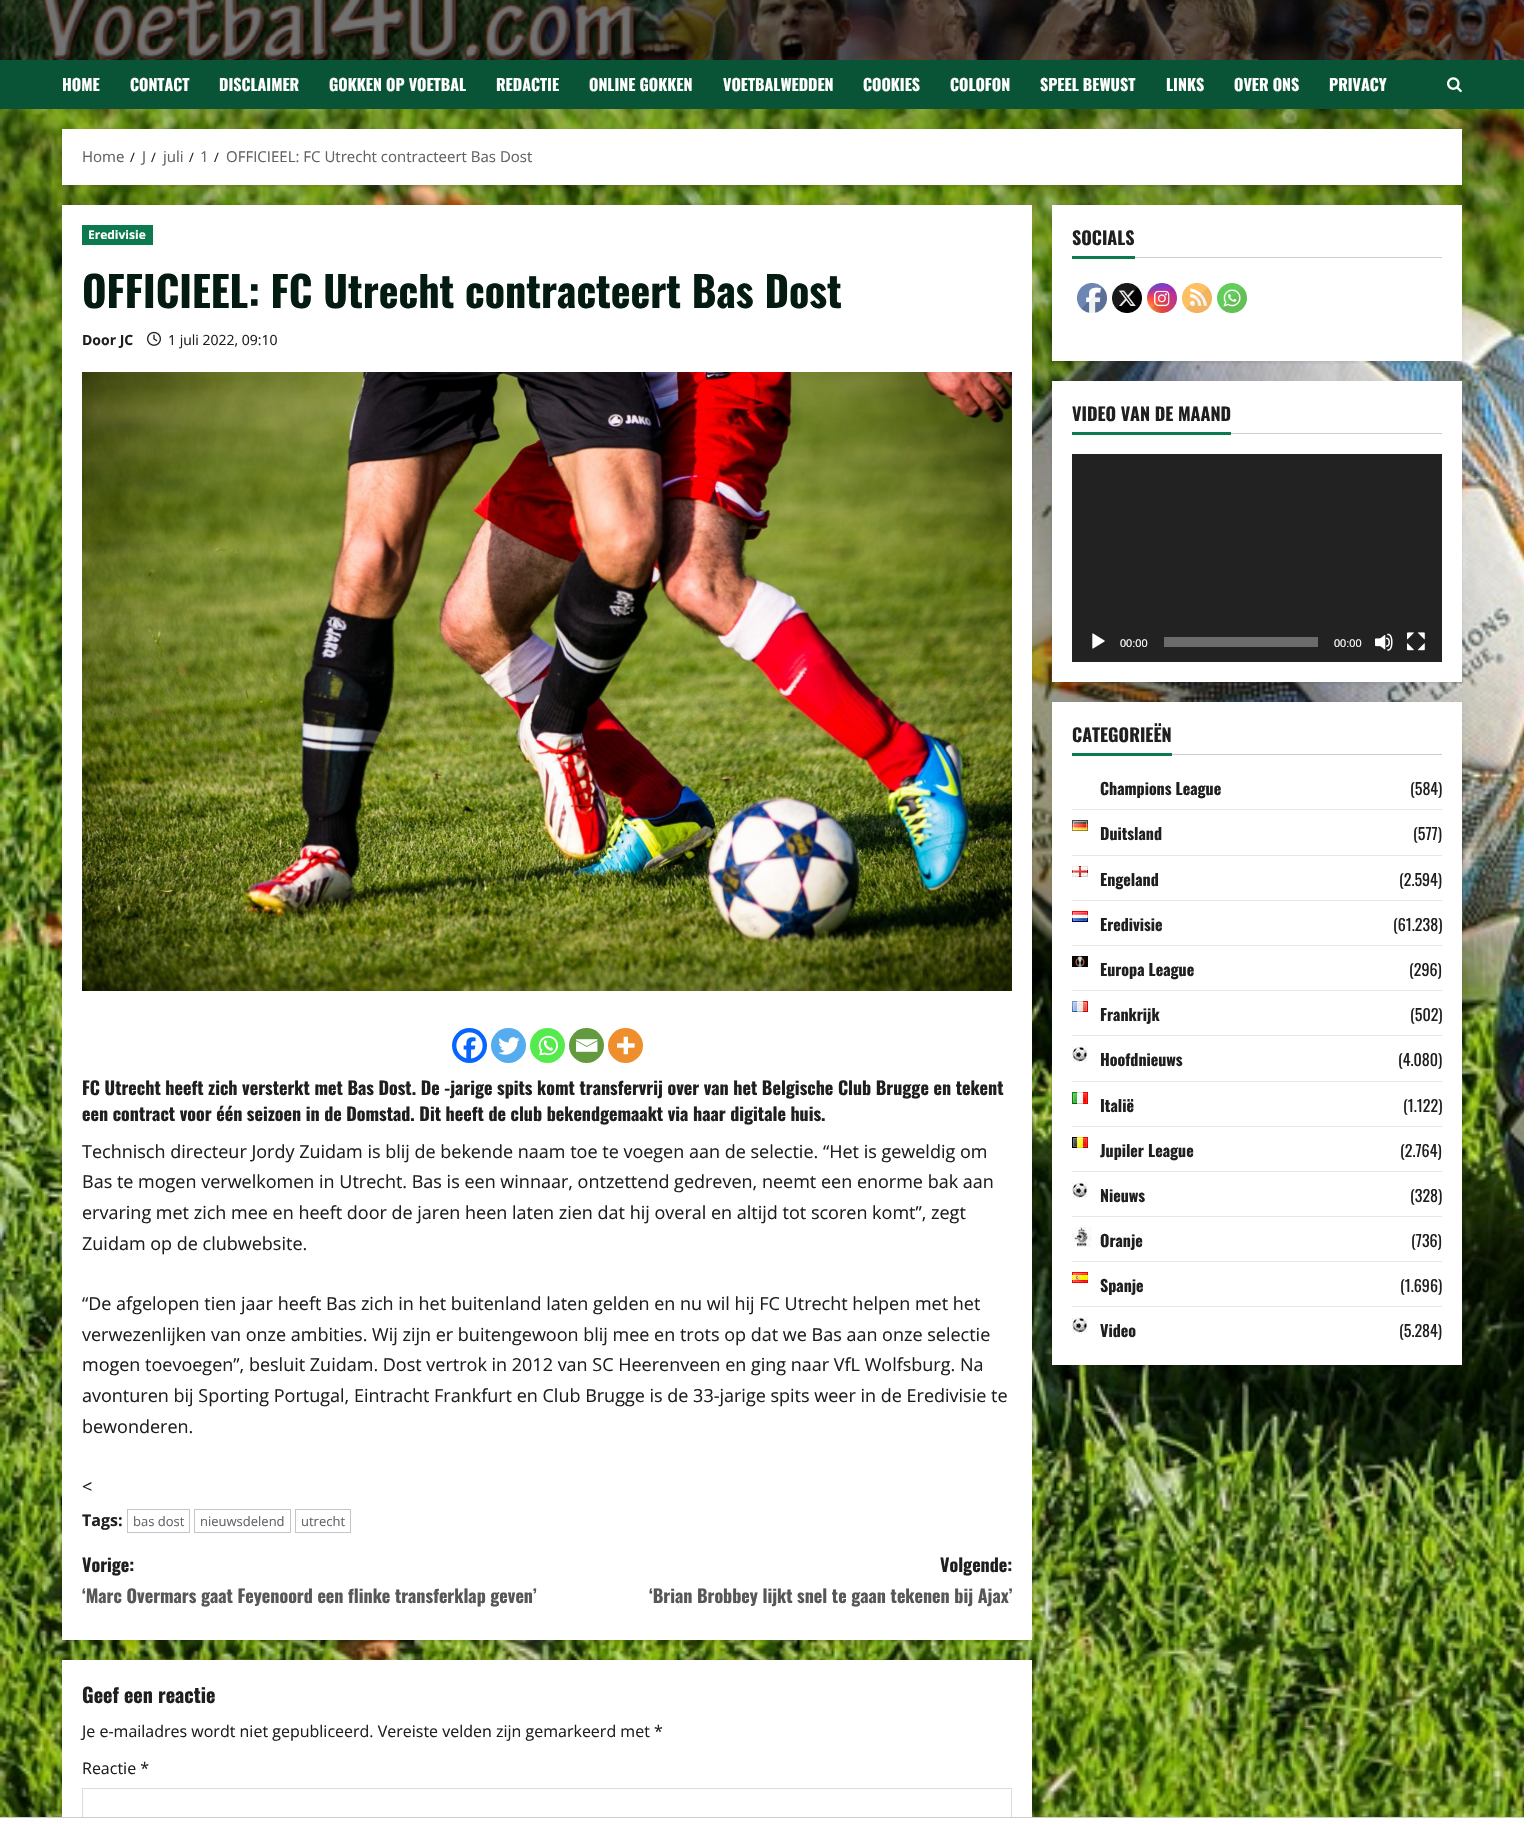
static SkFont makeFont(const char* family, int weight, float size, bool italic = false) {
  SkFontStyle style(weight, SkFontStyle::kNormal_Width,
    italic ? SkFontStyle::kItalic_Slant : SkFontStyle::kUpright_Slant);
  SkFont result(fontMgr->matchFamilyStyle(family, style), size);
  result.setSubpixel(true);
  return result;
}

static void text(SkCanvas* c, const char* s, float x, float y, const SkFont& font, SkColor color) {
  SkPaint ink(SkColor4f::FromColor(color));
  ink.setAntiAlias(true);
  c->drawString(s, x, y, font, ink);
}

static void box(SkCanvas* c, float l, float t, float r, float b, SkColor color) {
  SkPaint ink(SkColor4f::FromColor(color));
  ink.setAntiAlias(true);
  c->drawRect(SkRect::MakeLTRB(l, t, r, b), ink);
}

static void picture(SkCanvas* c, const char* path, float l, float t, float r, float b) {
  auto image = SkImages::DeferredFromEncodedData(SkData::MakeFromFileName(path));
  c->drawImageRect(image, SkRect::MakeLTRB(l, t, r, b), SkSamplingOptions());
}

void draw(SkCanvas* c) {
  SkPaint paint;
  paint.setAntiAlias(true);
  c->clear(0xffffffff);
  picture(c, "img_01.png", 0, 109, 1524, 1817);
  picture(c, "img_02.png", 0, 0, 1524, 60);
  box(c, 0, 60, 1524, 109, 0xff095437);
  SkFont face1 = makeFont("Oswald", 700, 16);
  text(c, "HOME", 62, 91, face1, 0xffffffff);
  text(c, "CONTACT", 130, 91, face1, 0xffffffff);
  text(c, "DISCLAIMER", 219, 91, face1, 0xffffffff);
  text(c, "GOKKEN OP VOETBAL", 329, 91, face1, 0xffffffff);
  text(c, "REDACTIE", 496, 91, face1, 0xffffffff);
  text(c, "ONLINE GOKKEN", 589, 91, face1, 0xffffffff);
  text(c, "VOETBALWEDDEN", 723, 91, face1, 0xffffffff);
  text(c, "COOKIES", 863, 91, face1, 0xffffffff);
  text(c, "COLOFON", 950, 91, face1, 0xffffffff);
  text(c, "SPEEL BEWUST", 1040, 91, face1, 0xffffffff);
  text(c, "LINKS", 1166, 91, face1, 0xffffffff);
  text(c, "OVER ONS", 1234, 91, face1, 0xffffffff);
  text(c, "PRIVACY", 1329, 91, face1, 0xffffffff);
  picture(c, "img_03.png", 1447, 77, 1462, 93);
  paint.setColor(0x14000000);
  paint.setMaskFilter(SkMaskFilter::MakeBlur(kNormal_SkBlurStyle, 1));
  c->drawRect(SkRect::MakeLTRB(62, 131, 1462, 187), paint);
  paint.setMaskFilter(nullptr);
  box(c, 62, 129, 1462, 185, 0xffffffff);
  SkFont face2 = makeFont("Open Sans", 400, 15);
  text(c, "Home", 82, 162, face2, 0xff626262);
  SkFont face3 = makeFont("Open Sans", 400, 13);
  text(c, "/", 130, 162, face3, 0xff1f1f1f);
  text(c, "J", 142, 162, face2, 0xff626262);
  text(c, "/", 151, 162, face3, 0xff1f1f1f);
  text(c, "juli", 163, 162, face2, 0xff626262);
  text(c, "/", 189, 162, face3, 0xff1f1f1f);
  text(c, "1", 200, 162, face2, 0xff626262);
  text(c, "/", 214, 162, face3, 0xff1f1f1f);
  text(c, "OFFICIEEL: FC Utrecht contracteert Bas Dost", 226, 162, face2, 0xff626262);
  paint.setMaskFilter(SkMaskFilter::MakeBlur(kNormal_SkBlurStyle, 1));
  c->drawRect(SkRect::MakeLTRB(62, 207, 1032, 1642), paint);
  paint.setMaskFilter(nullptr);
  box(c, 62, 205, 1032, 1640, 0xffffffff);
  box(c, 82, 225, 153, 245, 0xff0c794f);
  SkFont face4 = makeFont("Open Sans", 700, 12);
  text(c, "Eredivisie", 88, 239, face4, 0xffffffff);
  SkFont face5 = makeFont("Oswald", 700, 42);
  text(c, "OFFICIEEL: FC Utrecht contracteert Bas Dost", 82, 308, face5, 0xff031b11);
  SkFont face6 = makeFont("Open Sans", 700, 14);
  text(c, "Door JC", 82, 345, face6, 0xff1f1f1f);
  picture(c, "img_04.png", 147, 331, 161, 346);
  SkFont face7 = makeFont("Open Sans", 400, 14);
  text(c, "1 juli 2022, 09:10", 168, 345, face7, 0xff1f1f1f);
  picture(c, "img_05.png", 82, 372, 1012, 991);
  paint.setColor(0xff0765fe);
  c->drawCircle(469.5f, 1045.5f, 17.5f, paint);
  picture(c, "img_06.png", 456, 1032, 483, 1059);
  paint.setColor(0xff55acee);
  c->drawCircle(508.5f, 1045.5f, 17.5f, paint);
  picture(c, "img_07.png", 498, 1037, 520, 1055);
  paint.setColor(0xff55eb4c);
  c->drawCircle(547.5f, 1045.5f, 17.5f, paint);
  picture(c, "img_08.png", 538, 1035, 558, 1056);
  paint.setColor(0xff649a3f);
  c->drawCircle(586.5f, 1045.5f, 17.5f, paint);
  picture(c, "img_09.png", 576, 1039, 598, 1052);
  paint.setColor(0xffee8e2d);
  c->drawCircle(625.5f, 1045.5f, 17.5f, paint);
  picture(c, "img_10.png", 617, 1036, 635, 1055);
  SkFont face8 = makeFont("Oswald", 700, 18);
  text(c, "FC Utrecht heeft zich versterkt met Bas Dost. De -jarige spits komt transfervrij over van het Belgische Club Brugge en tekent", 82, 1095, face8, 0xff1f1f1f);
  text(c, "een contract voor één seizoen in de Domstad. Dit heeft de club bekendgemaakt via haar digitale huis.", 82, 1121, face8, 0xff1f1f1f);
  SkFont face9 = makeFont("Open Sans", 400, 18);
  text(c, "Technisch directeur Jordy Zuidam is blij de bekende naam toe te voegen aan de selectie. “Het is geweldig om", 82, 1158, face9, 0xff1f1f1f);
  text(c, "Bas te mogen verwelkomen in Utrecht. Bas is een winnaar, ontzettend gedreven, neemt een enorme bak aan", 82, 1188, face9, 0xff1f1f1f);
  text(c, "ervaring met zich mee en heeft door de jaren heen laten zien dat hij overal en altijd tot scoren komt”, zegt", 82, 1219, face9, 0xff1f1f1f);
  text(c, "Zuidam op de clubwebsite.", 82, 1250, face9, 0xff1f1f1f);
  text(c, "“De afgelopen tien jaar heeft Bas zich in het buitenland laten gelden en nu wil hij FC Utrecht helpen met het", 82, 1310, face9, 0xff1f1f1f);
  text(c, "verwezenlijken van onze ambities. Wij zijn er buitengewoon blij mee en trots op dat we Bas aan onze selectie", 82, 1341, face9, 0xff1f1f1f);
  text(c, "mogen toevoegen”, besluit Zuidam. Dost vertrok in 2012 van SC Heerenveen en ging naar VfL Wolfsburg. Na", 82, 1371, face9, 0xff1f1f1f);
  text(c, "avonturen bij Sporting Portugal, Eintracht Frankfurt en Club Brugge is de 33-jarige spits weer in de Eredivisie te", 82, 1402, face9, 0xff1f1f1f);
  text(c, "bewonderen.", 82, 1433, face9, 0xff1f1f1f);
  text(c, "<", 82, 1493, face9, 0xff1f1f1f);
  SkFont face10 = makeFont("Open Sans", 700, 16);
  text(c, "Tags:", 82, 1526, face10, 0xff1f1f1f);
  paint.setStyle(SkPaint::kStroke_Style);
  paint.setStrokeWidth(1);
  paint.setColor(0xffc4c5c8);
  c->drawRect(SkRect::MakeLTRB(127.5f, 1509.5f, 189.5f, 1532.5f), paint);
  text(c, "bas dost", 133, 1526, face3, 0xff61656b);
  c->drawRect(SkRect::MakeLTRB(194.5f, 1509.5f, 290.5f, 1532.5f), paint);
  text(c, "nieuwsdelend", 200, 1526, face3, 0xff61656b);
  c->drawRect(SkRect::MakeLTRB(295.5f, 1509.5f, 350.5f, 1532.5f), paint);
  text(c, "utrecht", 301, 1526, face3, 0xff61656b);
  text(c, "Vorige:", 82, 1572, face8, 0xff1f1f1f);
  text(c, "‘Marc Overmars gaat Feyenoord een flinke transferklap geven’", 82, 1603, face8, 0xff575757);
  text(c, "Volgende:", 940, 1572, face8, 0xff1f1f1f);
  text(c, "‘Brian Brobbey lijkt snel te gaan tekenen bij Ajax’", 649, 1603, face8, 0xff575757);
  paint.setStyle(SkPaint::kFill_Style);
  paint.setColor(0x14000000);
  paint.setMaskFilter(SkMaskFilter::MakeBlur(kNormal_SkBlurStyle, 1));
  c->drawRect(SkRect::MakeLTRB(62, 1662, 1032, 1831), paint);
  paint.setMaskFilter(nullptr);
  box(c, 62, 1660, 1032, 1817, 0xffffffff);
  SkFont face11 = makeFont("Oswald", 700, 20);
  text(c, "Geef een reactie", 82, 1703, face11, 0xff1f1f1f);
  SkFont face12 = makeFont("Open Sans", 400, 16);
  text(c, "Je e-mailadres wordt niet gepubliceerd. Vereiste velden zijn gemarkeerd met *", 82, 1737, face12, 0xff1f1f1f);
  text(c, "Reactie *", 82, 1774, face12, 0xff1f1f1f);
  paint.setStyle(SkPaint::kStroke_Style);
  paint.setColor(0xffdcdcdc);
  c->drawRect(SkRect::MakeLTRB(82.5f, 1788.5f, 1011.5f, 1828.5f), paint);
  paint.setStyle(SkPaint::kFill_Style);
  paint.setColor(0x14000000);
  paint.setMaskFilter(SkMaskFilter::MakeBlur(kNormal_SkBlurStyle, 1));
  c->drawRect(SkRect::MakeLTRB(1052, 207, 1462, 363), paint);
  paint.setMaskFilter(nullptr);
  box(c, 1052, 205, 1462, 361, 0xffffffff);
  box(c, 1135, 257, 1442, 258, 0xffcccccc);
  text(c, "SOCIALS", 1072, 245, face8, 0xff1f1f1f);
  box(c, 1072, 256, 1135, 259, 0xff0c794f);
  picture(c, "img_11.png", 1077, 283, 1107, 313);
  picture(c, "img_12.png", 1112, 283, 1142, 313);
  picture(c, "img_13.png", 1147, 283, 1177, 313);
  picture(c, "img_14.png", 1182, 283, 1212, 313);
  picture(c, "img_15.png", 1217, 283, 1247, 313);
  paint.setMaskFilter(SkMaskFilter::MakeBlur(kNormal_SkBlurStyle, 1));
  c->drawRect(SkRect::MakeLTRB(1052, 383, 1462, 684), paint);
  paint.setMaskFilter(nullptr);
  box(c, 1052, 381, 1462, 682, 0xffffffff);
  box(c, 1231, 433, 1442, 434, 0xffcccccc);
  text(c, "VIDEO VAN DE MAAND", 1072, 421, face8, 0xff1f1f1f);
  box(c, 1072, 432, 1231, 435, 0xff0c794f);
  box(c, 1072, 454, 1442, 662, 0xff222222);
  picture(c, "img_16.png", 1092, 633, 1105, 649);
  SkFont face13 = makeFont("Liberation Sans", 400, 11);
  text(c, "00:00", 1120, 647, face13, 0xffffffff);
  box(c, 1164, 637, 1318, 647, 0xff6b6b6b);
  text(c, "00:00", 1334, 647, face13, 0xffffffff);
  picture(c, "img_17.png", 1375, 633, 1393, 651);
  picture(c, "img_18.png", 1407, 632, 1425, 651);
  paint.setMaskFilter(SkMaskFilter::MakeBlur(kNormal_SkBlurStyle, 1));
  c->drawRect(SkRect::MakeLTRB(1052, 704, 1462, 1367), paint);
  paint.setMaskFilter(nullptr);
  box(c, 1052, 702, 1462, 1365, 0xffffffff);
  box(c, 1172, 754, 1442, 755, 0xffcccccc);
  text(c, "CATEGORIEËN", 1072, 742, face8, 0xff1f1f1f);
  box(c, 1072, 753, 1172, 756, 0xff0c794f);
  box(c, 1072, 809, 1442, 810, 0xffe6e6e6);
  text(c, "Champions League", 1100, 795, face1, 0xff1f1f1f);
  SkFont face14 = makeFont("Oswald", 400, 16);
  text(c, "(584)", 1410, 795, face14, 0xff1f1f1f);
  picture(c, "img_19.png", 1072, 820, 1088, 831);
  box(c, 1072, 855, 1442, 856, 0xffe6e6e6);
  text(c, "Duitsland", 1100, 840, face1, 0xff1f1f1f);
  text(c, "(577)", 1413, 840, face14, 0xff1f1f1f);
  picture(c, "img_20.png", 1072, 866, 1088, 877);
  box(c, 1072, 900, 1442, 901, 0xffe6e6e6);
  text(c, "Engeland", 1100, 886, face1, 0xff1f1f1f);
  text(c, "(2.594)", 1399, 886, face14, 0xff1f1f1f);
  picture(c, "img_21.png", 1072, 911, 1088, 922);
  box(c, 1072, 945, 1442, 946, 0xffe6e6e6);
  text(c, "Eredivisie", 1100, 931, face1, 0xff1f1f1f);
  text(c, "(61.238)", 1393, 931, face14, 0xff1f1f1f);
  picture(c, "img_22.png", 1072, 956, 1088, 967);
  box(c, 1072, 990, 1442, 991, 0xffe6e6e6);
  text(c, "Europa League", 1100, 976, face1, 0xff1f1f1f);
  text(c, "(296)", 1409, 976, face14, 0xff1f1f1f);
  picture(c, "img_23.png", 1072, 1001, 1088, 1012);
  box(c, 1072, 1035, 1442, 1036, 0xffe6e6e6);
  text(c, "Frankrijk", 1100, 1021, face1, 0xff1f1f1f);
  text(c, "(502)", 1410, 1021, face14, 0xff1f1f1f);
  picture(c, "img_24.png", 1072, 1046, 1088, 1062);
  box(c, 1072, 1081, 1442, 1082, 0xffe6e6e6);
  text(c, "Hoofdnieuws", 1100, 1066, face1, 0xff1f1f1f);
  text(c, "(4.080)", 1398, 1066, face14, 0xff1f1f1f);
  picture(c, "img_25.png", 1072, 1092, 1088, 1104);
  box(c, 1072, 1126, 1442, 1127, 0xffe6e6e6);
  text(c, "Italië", 1100, 1112, face1, 0xff1f1f1f);
  text(c, "(1.122)", 1403, 1112, face14, 0xff1f1f1f);
  picture(c, "img_26.png", 1072, 1137, 1088, 1148);
  box(c, 1072, 1171, 1442, 1172, 0xffe6e6e6);
  text(c, "Jupiler League", 1100, 1157, face1, 0xff1f1f1f);
  text(c, "(2.764)", 1400, 1157, face14, 0xff1f1f1f);
  picture(c, "img_24.png", 1072, 1182, 1088, 1198);
  box(c, 1072, 1216, 1442, 1217, 0xffe6e6e6);
  text(c, "Nieuws", 1100, 1202, face1, 0xff1f1f1f);
  text(c, "(328)", 1410, 1202, face14, 0xff1f1f1f);
  picture(c, "img_27.png", 1072, 1227, 1092, 1247);
  box(c, 1072, 1261, 1442, 1262, 0xffe6e6e6);
  text(c, "Oranje", 1100, 1247, face1, 0xff1f1f1f);
  text(c, "(736)", 1411, 1247, face14, 0xff1f1f1f);
  picture(c, "img_28.png", 1072, 1272, 1088, 1283);
  box(c, 1072, 1306, 1442, 1307, 0xffe6e6e6);
  text(c, "Spanje", 1100, 1292, face1, 0xff1f1f1f);
  text(c, "(1.696)", 1400, 1292, face14, 0xff1f1f1f);
  picture(c, "img_24.png", 1072, 1317, 1088, 1333);
  text(c, "Video", 1100, 1337, face1, 0xff1f1f1f);
  text(c, "(5.284)", 1399, 1337, face14, 0xff1f1f1f);
  box(c, 61, 1818, 1033, 1828, 0xffffffff);
  box(c, 0, 1817, 1524, 1818, 0xffcccccc);
}
